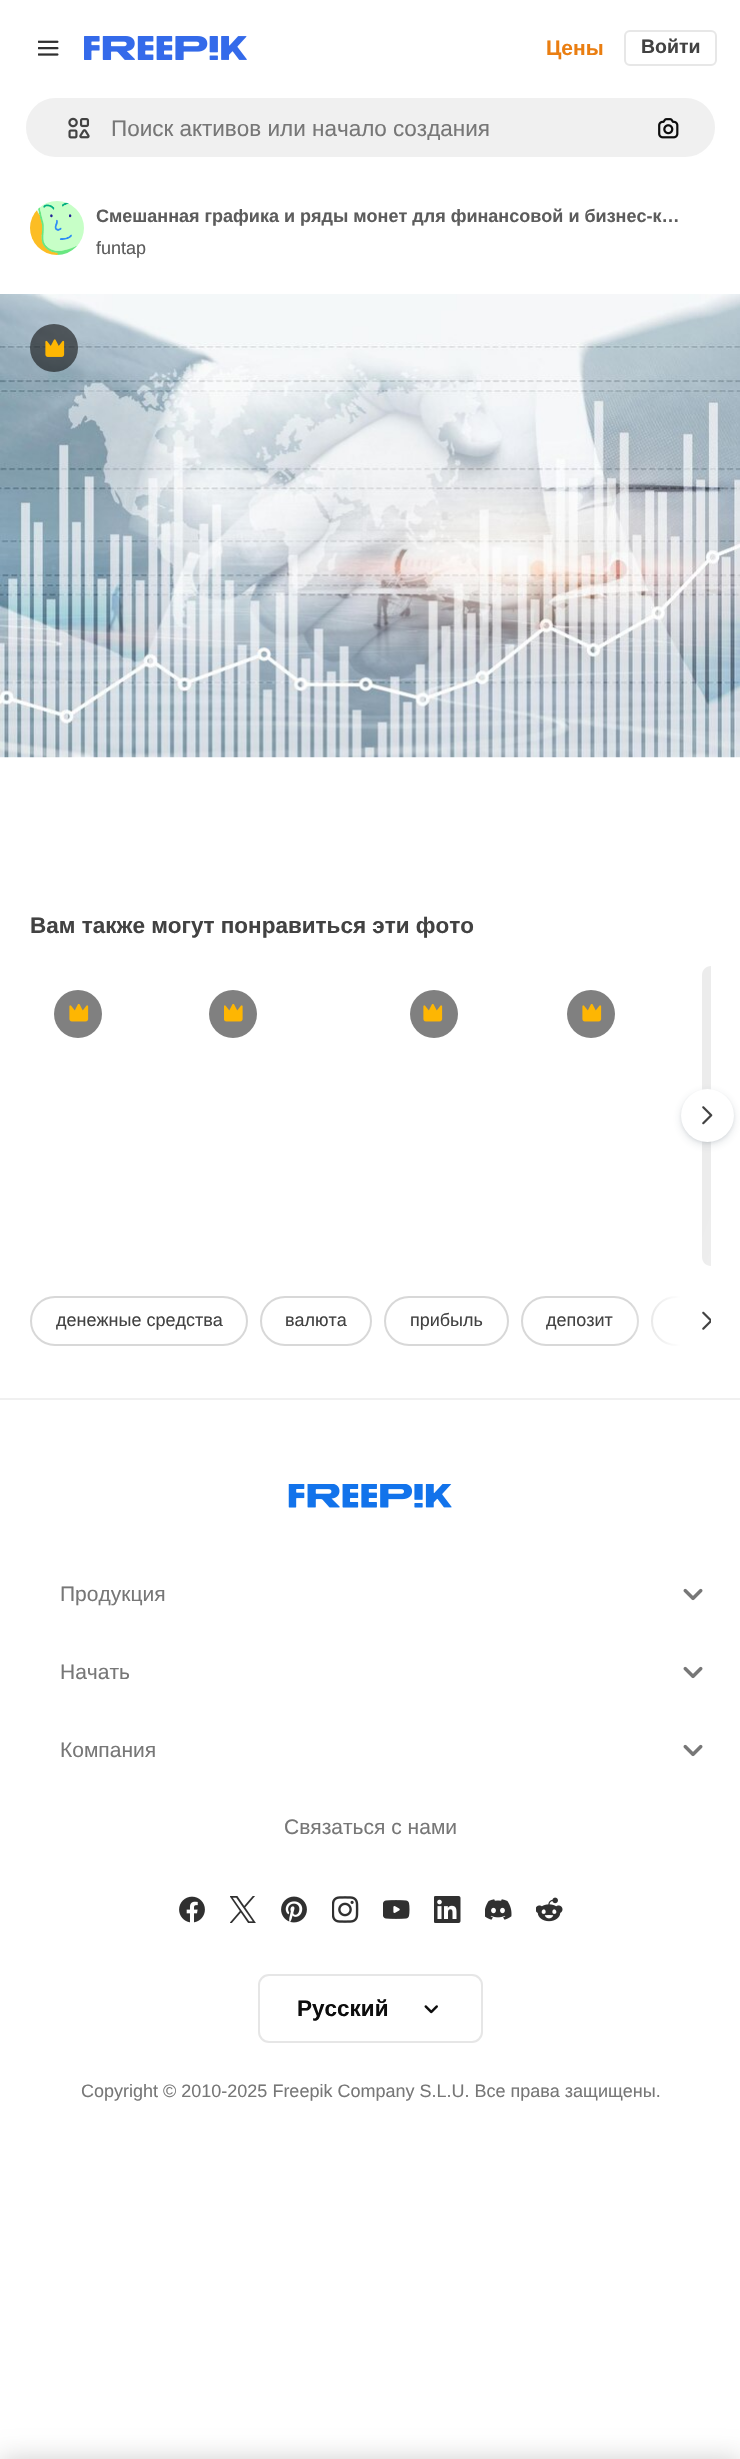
static SkFont makeFont(const char* family, int weight, float size, bool italic = false) {
  SkFontStyle style(weight, SkFontStyle::kNormal_Width,
    italic ? SkFontStyle::kItalic_Slant : SkFontStyle::kUpright_Slant);
  SkFont result(fontMgr->matchFamilyStyle(family, style), size);
  result.setSubpixel(true);
  return result;
}

static void text(SkCanvas* c, const char* s, float x, float y, const SkFont& font, SkColor color) {
  SkPaint ink(SkColor4f::FromColor(color));
  ink.setAntiAlias(true);
  c->drawString(s, x, y, font, ink);
}

static void box(SkCanvas* c, float l, float t, float r, float b, SkColor color) {
  SkPaint ink(SkColor4f::FromColor(color));
  ink.setAntiAlias(true);
  c->drawRect(SkRect::MakeLTRB(l, t, r, b), ink);
}

static void picture(SkCanvas* c, const char* path, float l, float t, float r, float b) {
  auto image = SkImages::DeferredFromEncodedData(SkData::MakeFromFileName(path));
  c->drawImageRect(image, SkRect::MakeLTRB(l, t, r, b), SkSamplingOptions());
}

void draw(SkCanvas* c) {
  SkPaint paint;
  paint.setAntiAlias(true);
  c->clear(0xffffffff);
  picture(c, "img_01.png", 38, 40, 59, 56);
  picture(c, "img_02.png", 84, 36, 247, 60);
  SkFont face1 = makeFont("Liberation Sans", 700, 21);
  text(c, "Цены", 546, 55, face1, 0xffea7e11);
  paint.setStyle(SkPaint::kStroke_Style);
  paint.setStrokeWidth(2);
  paint.setColor(0xffe7e7e7);
  c->drawRoundRect(SkRect::MakeLTRB(625, 31, 716, 65), 5, 5, paint);
  SkFont face2 = makeFont("Liberation Sans", 700, 19.5f);
  text(c, "Войти", 641, 53, face2, 0xff424242);
  paint.setStyle(SkPaint::kFill_Style);
  paint.setColor(0xfff0f0f0);
  c->drawRoundRect(SkRect::MakeLTRB(25, 97, 716, 158), 30.5f, 30.5f, paint);
  paint.setStyle(SkPaint::kStroke_Style);
  paint.setColor(0xffffffff);
  c->drawRoundRect(SkRect::MakeLTRB(25, 97, 716, 158), 30.5f, 30.5f, paint);
  picture(c, "img_03.png", 68, 117, 90, 139);
  c->save();
  c->clipRect(SkRect::MakeLTRB(111, 114, 641, 140));
  SkFont face3 = makeFont("Liberation Sans", 400, 22.5f);
  text(c, "Поиск активов или начало создания", 111, 136, face3, 0xff777777);
  c->restore();
  picture(c, "img_04.png", 658, 118, 679, 139);
  picture(c, "img_05.png", 30, 201, 84, 255);
  SkFont face4 = makeFont("Liberation Sans", 700, 18);
  text(c, "Смешанная графика и ряды монет для финансовой и бизнес-к…", 96, 222, face4, 0xff5c5c5c);
  SkFont face5 = makeFont("Liberation Sans", 400, 18);
  text(c, "funtap", 96, 254, face5, 0xff5c5c5c);
  picture(c, "img_06.png", 0, 294, 740, 758);
  paint.setStyle(SkPaint::kFill_Style);
  paint.setColor(0x990d0d0d);
  c->drawCircle(54, 348, 24, paint);
  picture(c, "img_07.png", 45, 339, 65, 357);
  SkFont face6 = makeFont("Liberation Sans", 700, 22.5f);
  text(c, "Вам также могут понравиться эти фото", 30, 933, face6, 0xff424242);
  paint.setColor(0xff808080);
  c->drawCircle(78, 1014, 24, paint);
  picture(c, "img_08.png", 69, 1004, 89, 1022);
  c->drawCircle(233, 1014, 24, paint);
  picture(c, "img_09.png", 224, 1004, 243, 1022);
  c->drawCircle(434, 1014, 24, paint);
  picture(c, "img_08.png", 423, 1004, 443, 1022);
  c->drawCircle(591, 1014, 24, paint);
  picture(c, "img_08.png", 582, 1004, 602, 1022);
  {
    const SkColor colors[] = {0xffececec, 0xfff5f5f5, 0xffececec};
    const float stops[] = {0.08f, 0.18f, 0.33f};
    const SkPoint ends[] = {{715, 930}, {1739, 1302}};
    paint.setShader(SkGradientShader::MakeLinear(ends, colors, stops, 3, SkTileMode::kClamp));
    paint.setAlpha(255);
  }
  c->drawPath(SkPathBuilder().moveTo(711, 966).lineTo(711, 1266).cubicTo(706, 1266, 702, 1262, 702, 1257).lineTo(702, 975).cubicTo(702, 970, 706, 966, 711, 966).close().detach(), paint);
  paint.setShader(nullptr);
  paint.setColor(0x26374957);
  paint.setMaskFilter(SkMaskFilter::MakeBlur(kNormal_SkBlurStyle, 4));
  c->drawRoundRect(SkRect::MakeLTRB(681, 1092, 734, 1145), 26.5f, 26.5f, paint);
  paint.setMaskFilter(nullptr);
  paint.setColor(0x1a374957);
  paint.setMaskFilter(SkMaskFilter::MakeBlur(kNormal_SkBlurStyle, 1.5f));
  c->drawRoundRect(SkRect::MakeLTRB(681, 1091, 734, 1143), 26, 26, paint);
  paint.setMaskFilter(nullptr);
  paint.setColor(0xffffffff);
  c->drawCircle(707.5f, 1115.5f, 26.5f, paint);
  picture(c, "img_10.png", 702, 1106, 713, 1125);
  paint.setStyle(SkPaint::kStroke_Style);
  paint.setColor(0xffd8d8d8);
  c->drawRoundRect(SkRect::MakeLTRB(31, 1297, 247, 1345), 24, 24, paint);
  text(c, "денежные средства", 56, 1326, face5, 0xff424242);
  c->drawRoundRect(SkRect::MakeLTRB(261, 1297, 371, 1345), 24, 24, paint);
  text(c, "валюта", 285, 1326, face5, 0xff424242);
  c->drawRoundRect(SkRect::MakeLTRB(385, 1297, 508, 1345), 24, 24, paint);
  text(c, "прибыль", 410, 1326, face5, 0xff424242);
  c->drawRoundRect(SkRect::MakeLTRB(522, 1297, 638, 1345), 24, 24, paint);
  text(c, "депозит", 546, 1326, face5, 0xff424242);
  c->save();
  c->clipRect(SkRect::MakeLTRB(30, 1296, 711, 1346));
  c->drawRoundRect(SkRect::MakeLTRB(652, 1297, 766, 1345), 24, 24, paint);
  c->restore();
  box(c, 681, 1296, 711, 1346, 0xffffffff);
  paint.setStyle(SkPaint::kFill_Style);
  {
    const SkColor colors[] = {0xffffffff, 0x00ffffff};
    const float stops[] = {0, 1};
    const SkPoint ends[] = {{681, 1321}, {629, 1321}};
    paint.setShader(SkGradientShader::MakeLinear(ends, colors, stops, 2, SkTileMode::kClamp));
    paint.setAlpha(255);
  }
  c->drawRect(SkRect::MakeLTRB(632, 1296, 681, 1346), paint);
  picture(c, "img_11.png", 702, 1311, 711, 1330);
  box(c, 0, 1398, 740, 1400, 0xfff0f0f0);
  picture(c, "img_12.png", 288, 1484, 452, 1508);
  SkFont face7 = makeFont("Liberation Sans", 400, 21);
  text(c, "Продукция", 60, 1601, face7, 0xff777777);
  picture(c, "img_13.png", 683, 1588, 703, 1601);
  text(c, "Начать", 60, 1679, face7, 0xff777777);
  picture(c, "img_13.png", 683, 1666, 703, 1679);
  text(c, "Компания", 60, 1757, face7, 0xff777777);
  picture(c, "img_13.png", 683, 1744, 703, 1757);
  text(c, "Связаться с нами", 284, 1834, face7, 0xff777777);
  picture(c, "img_14.png", 179, 1896, 205, 1923);
  picture(c, "img_15.png", 230, 1896, 256, 1923);
  picture(c, "img_16.png", 281, 1896, 307, 1923);
  picture(c, "img_17.png", 332, 1896, 359, 1923);
  picture(c, "img_18.png", 383, 1900, 410, 1919);
  picture(c, "img_19.png", 434, 1896, 461, 1923);
  picture(c, "img_20.png", 485, 1899, 512, 1920);
  picture(c, "img_21.png", 536, 1897, 563, 1922);
  paint.setStyle(SkPaint::kStroke_Style);
  paint.setShader(nullptr);
  paint.setColor(0xffe6e6e6);
  c->drawRoundRect(SkRect::MakeLTRB(259, 1975, 482, 2042), 10, 10, paint);
  text(c, "Pусский", 297, 2016, face6, 0xff0d0d0d);
  picture(c, "img_22.png", 424, 2005, 438, 2014);
  text(c, "Copyright © 2010-2025 Freepik Company S.L.U. Все права защищены.", 81, 2097, face5, 0xff777777);
  paint.setStyle(SkPaint::kFill_Style);
  paint.setColor(0x33000000);
  paint.setMaskFilter(SkMaskFilter::MakeBlur(kNormal_SkBlurStyle, 13.5f));
  c->drawRect(SkRect::MakeLTRB(0, 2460, 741, 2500), paint);
  paint.setMaskFilter(nullptr);
}
